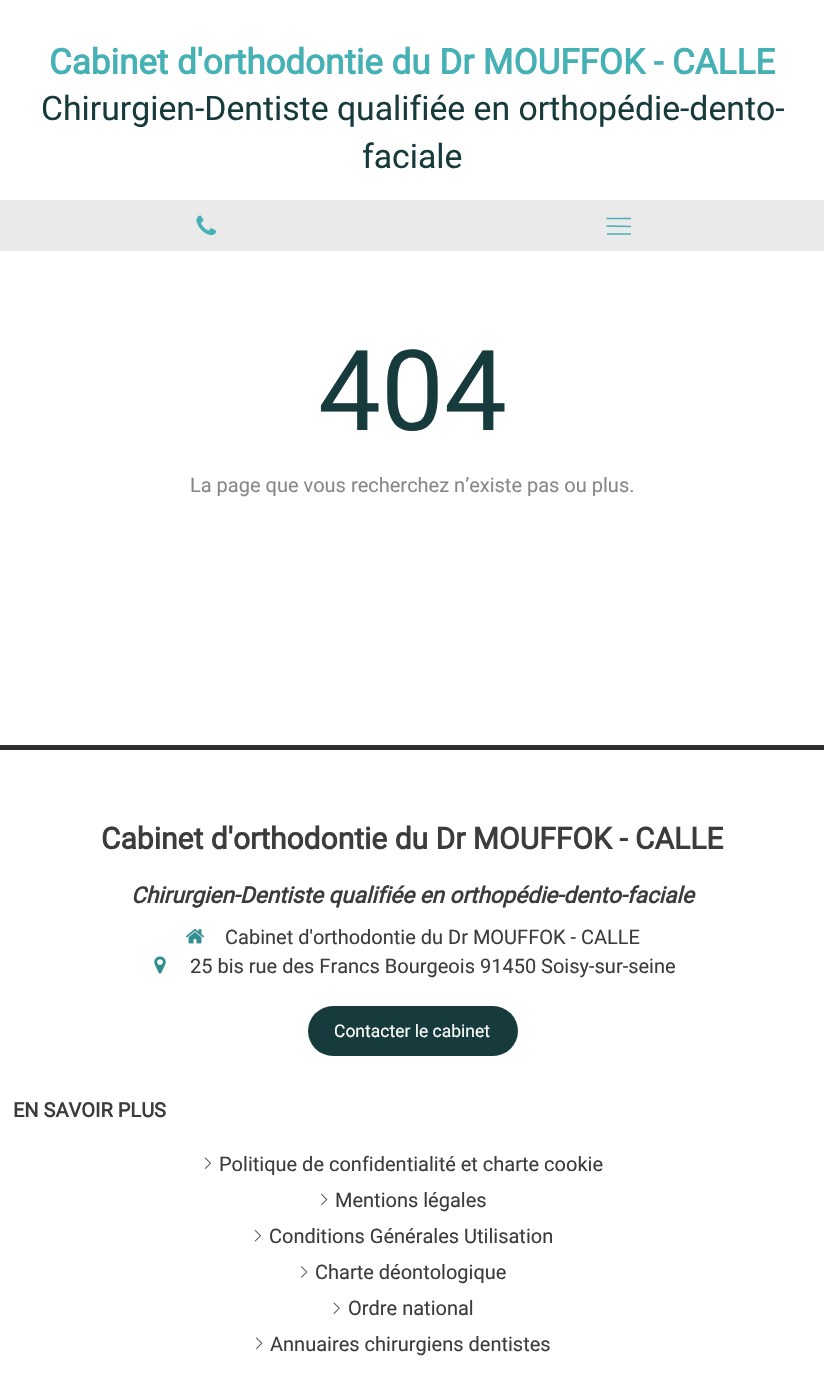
static SkFont makeFont(const char* family, int weight, float size, bool italic = false) {
  SkFontStyle style(weight, SkFontStyle::kNormal_Width,
    italic ? SkFontStyle::kItalic_Slant : SkFontStyle::kUpright_Slant);
  SkFont result(fontMgr->matchFamilyStyle(family, style), size);
  result.setSubpixel(true);
  return result;
}

static void text(SkCanvas* c, const char* s, float x, float y, const SkFont& font, SkColor color) {
  SkPaint ink(SkColor4f::FromColor(color));
  ink.setAntiAlias(true);
  c->drawString(s, x, y, font, ink);
}

static void box(SkCanvas* c, float l, float t, float r, float b, SkColor color) {
  SkPaint ink(SkColor4f::FromColor(color));
  ink.setAntiAlias(true);
  c->drawRect(SkRect::MakeLTRB(l, t, r, b), ink);
}

static void roundBox(SkCanvas* c, float l, float t, float r, float b, float radius, SkColor color) {
  SkPaint ink(SkColor4f::FromColor(color));
  ink.setAntiAlias(true);
  c->drawRoundRect(SkRect::MakeLTRB(l, t, r, b), radius, radius, ink);
}

static void picture(SkCanvas* c, const char* path, float l, float t, float r, float b) {
  auto image = SkImages::DeferredFromEncodedData(SkData::MakeFromFileName(path));
  c->drawImageRect(image, SkRect::MakeLTRB(l, t, r, b), SkSamplingOptions());
}

void draw(SkCanvas* c) {
  SkPaint paint;
  paint.setAntiAlias(true);
  c->clear(0xffffffff);
  SkFont face1 = makeFont("Roboto", 700, 35);
  text(c, "Cabinet d'orthodontie du Dr MOUFFOK - CALLE", 49, 74, face1, 0xff46b1b5);
  SkFont face2 = makeFont("Roboto", 400, 33.75f);
  text(c, "Chirurgien-Dentiste qualifiée en orthopédie-dento-", 41, 120, face2, 0xff173b3c);
  text(c, "faciale", 362, 168, face2, 0xff173b3c);
  box(c, 0, 200, 824, 251, 0xffeaeaea);
  picture(c, "img_01.png", 196, 215, 216, 236);
  paint.setStyle(SkPaint::kStroke_Style);
  paint.setStrokeWidth(1.5f);
  paint.setColor(0xff46b1b5);
  c->drawPath(SkPathBuilder().moveTo(606.5f, 226).lineTo(631, 226.5f).moveTo(606.5f, 218.5f).lineTo(631, 218.5f).detach(), paint);
  box(c, 607, 233, 631, 235, 0xff6fbfc2);
  SkFont face3 = makeFont("Roboto", 400, 112);
  text(c, "404", 318, 430, face3, 0xff173b3c);
  SkFont face4 = makeFont("Roboto", 400, 20);
  text(c, "La page que vous recherchez n’existe pas ou plus.", 190, 492, face4, 0xff888888);
  box(c, 0, 745, 824, 750, 0xff2f2f2f);
  SkFont face5 = makeFont("Roboto", 700, 30);
  text(c, "Cabinet d'orthodontie du Dr MOUFFOK - CALLE", 101, 849, face5, 0xff3c3c3c);
  SkFont face6 = makeFont("Roboto", 700, 22.5f, true);
  text(c, "Chirurgien-Dentiste qualifiée en orthopédie-dento-faciale", 131, 903, face6, 0xff3c3c3c);
  picture(c, "img_02.png", 186, 929, 204, 944);
  text(c, "Cabinet d'orthodontie du Dr MOUFFOK - CALLE", 225, 944, face4, 0xff3c3c3c);
  picture(c, "img_03.png", 154, 956, 166, 974);
  text(c, "25 bis rue des Francs Bourgeois 91450 Soisy-sur-seine", 190, 973, face4, 0xff3c3c3c);
  roundBox(c, 308, 1006, 518, 1056, 25, 0xff173b3c);
  SkFont face7 = makeFont("Roboto", 400, 17.5f);
  text(c, "Contacter le cabinet", 334, 1037, face7, 0xffffffff);
  SkFont face8 = makeFont("Roboto", 700, 20);
  text(c, "EN SAVOIR PLUS", 13, 1117, face8, 0xff3c3c3c);
  picture(c, "img_04.png", 204, 1157, 211, 1169);
  text(c, "Politique de confidentialité et charte cookie", 219, 1171, face4, 0xff3c3c3c);
  picture(c, "img_05.png", 321, 1193, 328, 1206);
  text(c, "Mentions légales", 335, 1207, face4, 0xff3c3c3c);
  picture(c, "img_06.png", 254, 1230, 261, 1242);
  text(c, "Conditions Générales Utilisation", 269, 1243, face4, 0xff3c3c3c);
  picture(c, "img_07.png", 301, 1266, 308, 1278);
  text(c, "Charte déontologique", 315, 1279, face4, 0xff3c3c3c);
  picture(c, "img_08.png", 333, 1302, 340, 1314);
  text(c, "Ordre national", 348, 1315, face4, 0xff3c3c3c);
  picture(c, "img_09.png", 256, 1337, 263, 1349);
  text(c, "Annuaires chirurgiens dentistes", 270, 1351, face4, 0xff3c3c3c);
}
